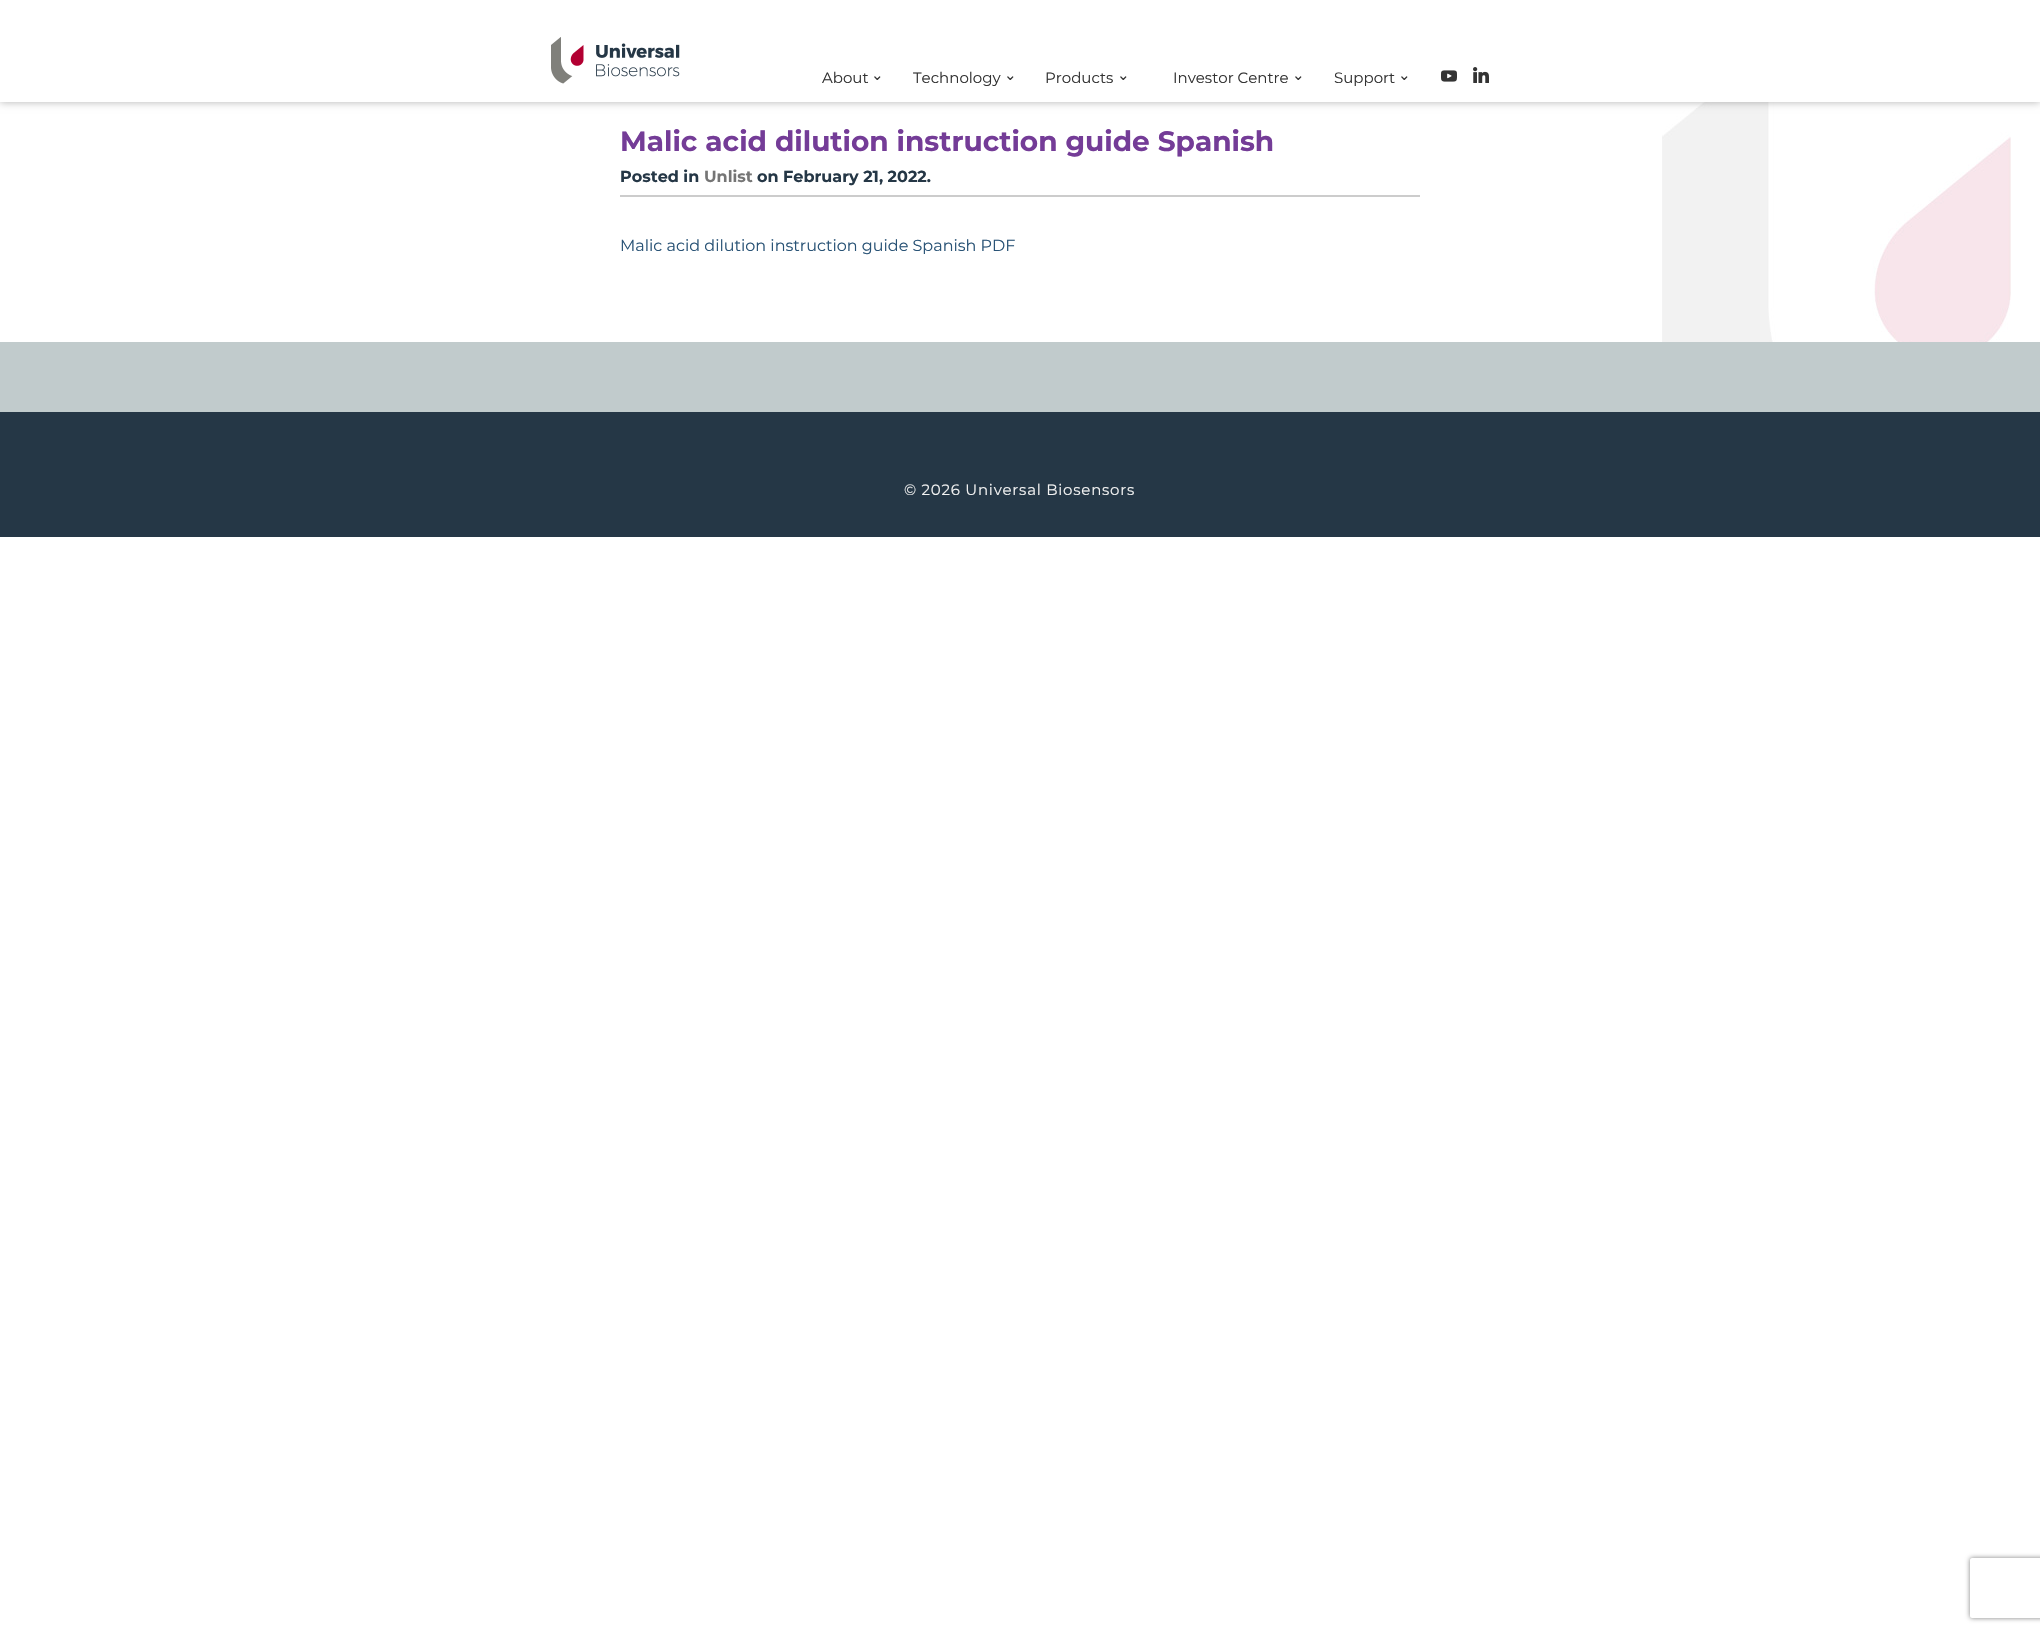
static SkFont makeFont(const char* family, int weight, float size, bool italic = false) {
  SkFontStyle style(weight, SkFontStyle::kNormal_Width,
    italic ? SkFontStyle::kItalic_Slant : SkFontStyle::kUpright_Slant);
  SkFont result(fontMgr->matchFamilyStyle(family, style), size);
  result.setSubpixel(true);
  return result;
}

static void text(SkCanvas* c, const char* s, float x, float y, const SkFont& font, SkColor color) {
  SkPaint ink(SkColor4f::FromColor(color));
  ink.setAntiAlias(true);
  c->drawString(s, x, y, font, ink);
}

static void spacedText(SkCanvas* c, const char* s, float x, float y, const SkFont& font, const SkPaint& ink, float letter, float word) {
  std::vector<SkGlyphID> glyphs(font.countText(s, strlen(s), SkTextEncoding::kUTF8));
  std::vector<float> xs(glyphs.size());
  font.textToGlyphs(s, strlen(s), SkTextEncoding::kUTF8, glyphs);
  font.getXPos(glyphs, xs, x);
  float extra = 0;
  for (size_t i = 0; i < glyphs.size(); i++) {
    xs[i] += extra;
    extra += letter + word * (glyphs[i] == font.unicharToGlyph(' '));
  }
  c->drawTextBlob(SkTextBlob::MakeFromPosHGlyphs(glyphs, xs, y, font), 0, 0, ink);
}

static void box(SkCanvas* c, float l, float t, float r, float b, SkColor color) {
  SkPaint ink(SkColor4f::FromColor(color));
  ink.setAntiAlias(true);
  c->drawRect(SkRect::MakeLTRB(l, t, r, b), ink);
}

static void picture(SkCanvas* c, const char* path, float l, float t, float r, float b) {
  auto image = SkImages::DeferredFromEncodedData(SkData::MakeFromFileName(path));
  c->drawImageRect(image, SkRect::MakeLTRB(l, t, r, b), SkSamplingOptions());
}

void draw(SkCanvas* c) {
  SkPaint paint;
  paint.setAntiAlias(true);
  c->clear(0xffffffff);
  picture(c, "img_04.png", 1662, 102, 2011, 342);
  paint.setColor(0x4d000000);
  paint.setMaskFilter(SkMaskFilter::MakeBlur(kNormal_SkBlurStyle, 4));
  c->drawRect(SkRect::MakeLTRB(0, 0, 2040, 102), paint);
  paint.setMaskFilter(nullptr);
  box(c, 0, 0, 2040, 102, 0xffffffff);
  picture(c, "img_01.png", 551, 37, 680, 84);
  SkFont face1 = makeFont("Montserrat", 400, 15);
  text(c, "About", 822, 83, face1, 0xff333333);
  SkFont face2 = makeFont("DejaVu Sans", 400, 15);
  text(c, "⌄", 871, 80, face2, 0xff333333);
  text(c, "Technology", 913, 83, face1, 0xff333333);
  text(c, "⌄", 1004, 80, face2, 0xff333333);
  text(c, "Products", 1045, 83, face1, 0xff333333);
  text(c, "⌄", 1117, 80, face2, 0xff333333);
  text(c, "Investor Centre", 1173, 83, face1, 0xff333333);
  text(c, "⌄", 1292, 80, face2, 0xff333333);
  text(c, "Support", 1334, 83, face1, 0xff333333);
  text(c, "⌄", 1398, 80, face2, 0xff333333);
  picture(c, "img_02.png", 1441, 70, 1457, 82);
  picture(c, "img_03.png", 1473, 67, 1489, 83);
  SkFont face3 = makeFont("Montserrat", 700, 28);
  text(c, "Malic acid dilution instruction guide Spanish", 620, 151, face3, 0xff743c97);
  box(c, 620, 195, 1420, 197, 0xffcccccc);
  SkFont face4 = makeFont("Montserrat", 700, 16);
  text(c, "Posted in", 620, 182, face4, 0xff253746);
  text(c, "Unlist", 704, 182, face4, 0xff757575);
  text(c, "on February 21, 2022.", 757, 182, face4, 0xff253746);
  SkFont face5 = makeFont("Montserrat", 400, 16);
  text(c, "Malic acid dilution instruction guide Spanish PDF", 620, 251, face5, 0xff295376);
  box(c, 0, 342, 2040, 412, 0xffc1cbcc);
  box(c, 0, 412, 2040, 537, 0xff253746);
  paint.setColor(0xfff2f2f2);
  spacedText(c, "© 2026 Universal Biosensors", 904, 495, face1, paint, 0.75f, 0);
  c->save();
  c->clipPath(SkPathBuilder(SkPathFillType::kEvenOdd).moveTo(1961, 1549).lineTo(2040, 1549).lineTo(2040, 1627).lineTo(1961, 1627).close().moveTo(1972, 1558).lineTo(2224, 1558).cubicTo(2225, 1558, 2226, 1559, 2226, 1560).lineTo(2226, 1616).cubicTo(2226, 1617, 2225, 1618, 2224, 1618).lineTo(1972, 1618).cubicTo(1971, 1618, 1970, 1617, 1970, 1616).lineTo(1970, 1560).cubicTo(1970, 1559, 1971, 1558, 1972, 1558).close().detach(), true);
  paint.setColor(0xff808080);
  paint.setMaskFilter(SkMaskFilter::MakeBlur(kNormal_SkBlurStyle, 2.5f));
  c->drawRoundRect(SkRect::MakeLTRB(1970, 1558, 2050, 1618), 2, 2, paint);
  paint.setMaskFilter(nullptr);
  c->restore();
}
